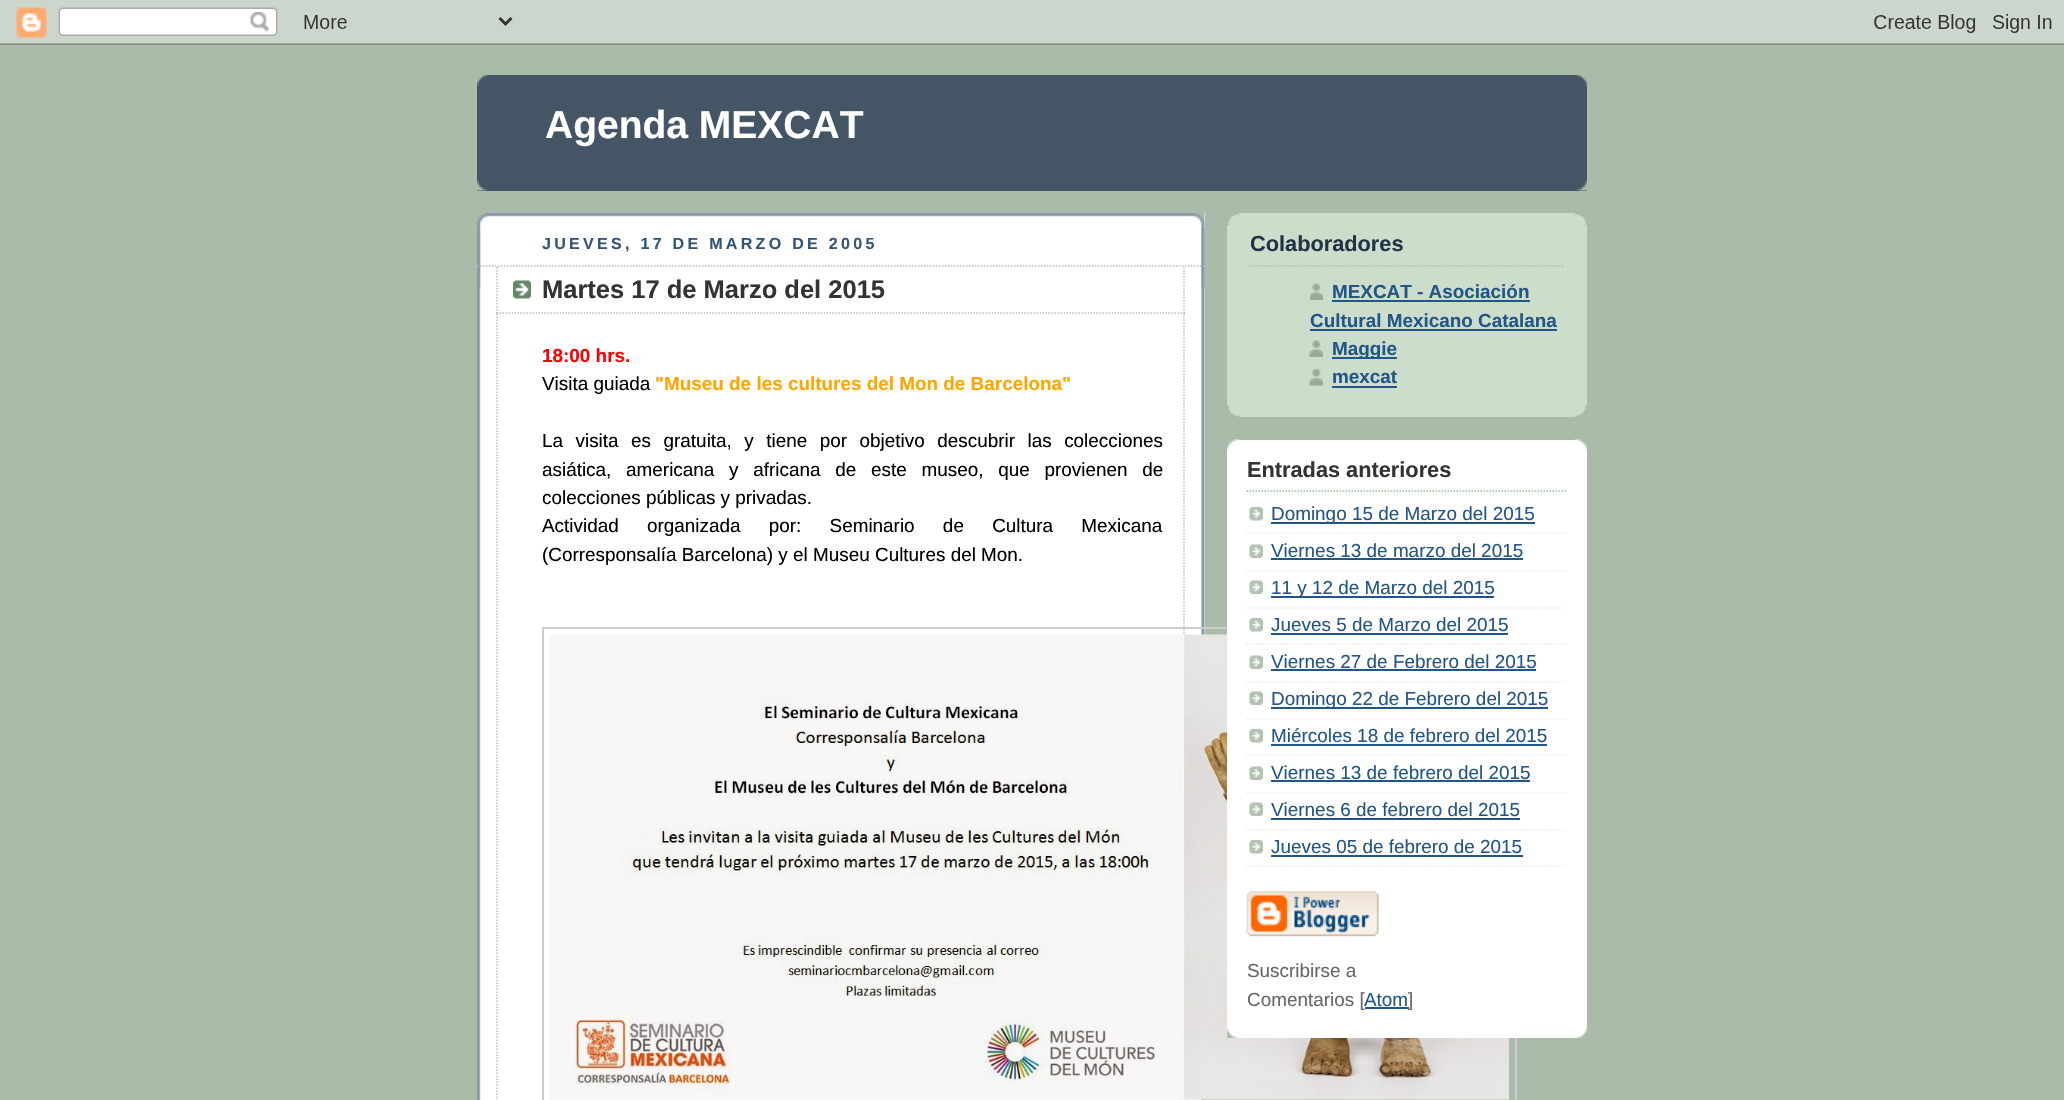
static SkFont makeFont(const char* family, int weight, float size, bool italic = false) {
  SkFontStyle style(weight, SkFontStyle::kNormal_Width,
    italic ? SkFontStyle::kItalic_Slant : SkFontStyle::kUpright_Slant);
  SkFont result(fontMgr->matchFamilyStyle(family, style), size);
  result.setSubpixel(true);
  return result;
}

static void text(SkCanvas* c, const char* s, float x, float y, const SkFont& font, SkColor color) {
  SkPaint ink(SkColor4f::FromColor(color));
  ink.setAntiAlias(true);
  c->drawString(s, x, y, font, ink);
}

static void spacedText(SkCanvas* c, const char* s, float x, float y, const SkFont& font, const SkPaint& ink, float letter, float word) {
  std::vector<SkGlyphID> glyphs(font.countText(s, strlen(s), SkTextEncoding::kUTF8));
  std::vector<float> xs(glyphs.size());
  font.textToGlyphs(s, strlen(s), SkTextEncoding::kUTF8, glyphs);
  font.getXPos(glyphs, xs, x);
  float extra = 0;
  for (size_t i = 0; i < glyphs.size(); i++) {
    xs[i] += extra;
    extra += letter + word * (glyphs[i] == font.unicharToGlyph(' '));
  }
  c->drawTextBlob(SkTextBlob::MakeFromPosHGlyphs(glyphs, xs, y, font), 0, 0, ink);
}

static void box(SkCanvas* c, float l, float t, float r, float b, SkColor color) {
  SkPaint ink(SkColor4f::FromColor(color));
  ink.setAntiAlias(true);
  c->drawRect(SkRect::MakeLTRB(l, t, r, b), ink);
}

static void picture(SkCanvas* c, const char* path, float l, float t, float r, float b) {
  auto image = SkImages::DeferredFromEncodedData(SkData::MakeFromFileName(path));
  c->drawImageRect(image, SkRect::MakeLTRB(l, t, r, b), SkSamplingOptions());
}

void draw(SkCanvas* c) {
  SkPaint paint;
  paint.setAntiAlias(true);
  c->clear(0xffaabbaa);
  picture(c, "img_01.png", 0, 0, 2064, 45);
  box(c, 477, 75, 1587, 191, 0xff445566);
  picture(c, "img_02.png", 477, 75, 1587, 87);
  picture(c, "img_03.png", 477, 179, 1587, 191);
  SkFont face1 = makeFont("Liberation Sans", 700, 39);
  text(c, "Agenda MEXCAT", 545, 138, face1, 0xffffffff);
  box(c, 479, 213, 1205, 1100, 0xffffffff);
  picture(c, "img_04.png", 477, 213, 1205, 288);
  picture(c, "img_05.png", 477, 228, 1205, 1100);
  SkFont face2 = makeFont("Liberation Sans", 700, 16.1f);
  paint.setColor(0xff335577);
  spacedText(c, "JUEVES, 17 DE MARZO DE 2005", 542, 249, face2, paint, 3.25f, 0);
  paint.setStyle(SkPaint::kStroke_Style);
  paint.setStrokeWidth(1.5f);
  paint.setColor(0xffbbbbbb);
  paint.setPathEffect(SkDashPathEffect::Make({{1.5f, 1.5f}}, 0));
  c->drawPath(SkPathBuilder().moveTo(477, 266).lineTo(1204.5f, 266).detach(), paint);
  paint.setPathEffect(nullptr);
  picture(c, "img_06.png", 513, 280, 531, 299);
  paint.setPathEffect(SkDashPathEffect::Make({{1.5f, 1.5f}}, 0));
  c->drawPath(SkPathBuilder().moveTo(1184, 267).lineTo(1184, 313.5f).detach(), paint);
  paint.setPathEffect(nullptr);
  paint.setPathEffect(SkDashPathEffect::Make({{1.5f, 1.5f}}, 0));
  c->drawPath(SkPathBuilder().moveTo(496.5f, 313).lineTo(1185, 313).detach(), paint);
  paint.setPathEffect(nullptr);
  paint.setPathEffect(SkDashPathEffect::Make({{1.5f, 1.5f}}, 0));
  c->drawPath(SkPathBuilder().moveTo(497, 267).lineTo(497, 313.5f).detach(), paint);
  paint.setPathEffect(nullptr);
  SkFont face3 = makeFont("Liberation Sans", 700, 25.5f);
  text(c, "Martes 17 de Marzo del 2015", 542, 298, face3, 0xff333333);
  paint.setPathEffect(SkDashPathEffect::Make({{1.5f, 1.5f}}, 0));
  c->drawPath(SkPathBuilder().moveTo(1184, 313.5f).lineTo(1184, 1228.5f).detach(), paint);
  paint.setPathEffect(nullptr);
  paint.setPathEffect(SkDashPathEffect::Make({{1.5f, 1.5f}}, 0));
  c->drawPath(SkPathBuilder().moveTo(497, 313.5f).lineTo(497, 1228.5f).detach(), paint);
  paint.setPathEffect(nullptr);
  SkFont face4 = makeFont("Liberation Sans", 700, 18.9f);
  text(c, "18:00 hrs.", 542, 362, face4, 0xffff0000);
  SkFont face5 = makeFont("Liberation Sans", 400, 18.9f);
  text(c, "Visita guiada", 542, 390, face5, 0xff000000);
  text(c, "\"Museu de les cultures del Mon de Barcelona\"", 655, 390, face4, 0xffffa500);
  paint.setStyle(SkPaint::kFill_Style);
  paint.setColor(0xff000000);
  spacedText(c, "La visita es gratuita, y tiene por objetivo descubrir las colecciones", 542, 447, face5, paint, 0, 7.25f);
  spacedText(c, "asiática, americana y africana de este museo, que provienen de", 542, 476, face5, paint, 0, 9.5f);
  text(c, "colecciones públicas y privadas.", 542, 504, face5, 0xff000000);
  spacedText(c, "Actividad organizada por: Seminario de Cultura Mexicana", 542, 532, face5, paint, 0, 23);
  text(c, "(Corresponsalía Barcelona) y el Museu Cultures del Mon.", 542, 561, face5, 0xff000000);
  paint.setStyle(SkPaint::kStroke_Style);
  paint.setStrokeWidth(2);
  paint.setColor(0xffcccccc);
  c->drawRect(SkRect::MakeLTRB(543, 628, 1516, 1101), paint);
  picture(c, "img_07.png", 549, 634, 1509, 1100);
  box(c, 1227, 213, 1587, 417, 0xffccddcc);
  picture(c, "img_08.png", 1227, 405, 1587, 417);
  picture(c, "img_09.png", 1227, 213, 1587, 225);
  SkFont face6 = makeFont("Liberation Sans", 700, 21.75f);
  text(c, "Colaboradores", 1250, 251, face6, 0xff223344);
  paint.setStrokeWidth(1.5f);
  paint.setColor(0xffaabbaa);
  paint.setPathEffect(SkDashPathEffect::Make({{1.5f, 1.5f}}, 0));
  c->drawPath(SkPathBuilder().moveTo(1249.5f, 266).lineTo(1564.5f, 266).detach(), paint);
  paint.setPathEffect(nullptr);
  picture(c, "img_10.png", 1310, 283, 1323, 300);
  text(c, "MEXCAT - Asociación", 1332, 298, face4, 0xff225588);
  box(c, 1332, 300, 1530, 302, 0xff225588);
  text(c, "Cultural Mexicano Catalana", 1310, 327, face4, 0xff225588);
  box(c, 1310, 329, 1557, 331, 0xff225588);
  picture(c, "img_11.png", 1309, 340, 1323, 357);
  box(c, 1332, 357, 1397, 359, 0xff225588);
  text(c, "Maggie", 1332, 355, face4, 0xff225588);
  picture(c, "img_12.png", 1309, 369, 1323, 386);
  text(c, "mexcat", 1332, 383, face4, 0xff225588);
  box(c, 1332, 386, 1397, 388, 0xff225588);
  box(c, 1227, 440, 1587, 1038, 0xffffffff);
  picture(c, "img_13.png", 1227, 439, 1587, 451);
  picture(c, "img_14.png", 1227, 1026, 1587, 1038);
  paint.setColor(0xff99bb99);
  paint.setPathEffect(SkDashPathEffect::Make({{1.5f, 1.5f}}, 0));
  c->drawPath(SkPathBuilder().moveTo(1246.5f, 491).lineTo(1567.5f, 491).detach(), paint);
  paint.setPathEffect(nullptr);
  text(c, "Entradas anteriores", 1247, 477, face6, 0xff333333);
  picture(c, "img_15.png", 1249, 507, 1263, 521);
  paint.setColor(0xffeeeeee);
  paint.setPathEffect(SkDashPathEffect::Make({{1.5f, 1.5f}}, 0));
  c->drawPath(SkPathBuilder().moveTo(1246.5f, 533).lineTo(1567.5f, 533).detach(), paint);
  paint.setPathEffect(nullptr);
  box(c, 1271, 522, 1535, 524, 0xff225588);
  text(c, "Domingo 15 de Marzo del 2015", 1271, 520, face5, 0xff225588);
  picture(c, "img_16.png", 1249, 544, 1263, 558);
  paint.setPathEffect(SkDashPathEffect::Make({{1.5f, 1.5f}}, 0));
  c->drawPath(SkPathBuilder().moveTo(1246.5f, 571).lineTo(1567.5f, 571).detach(), paint);
  paint.setPathEffect(nullptr);
  text(c, "Viernes 13 de marzo del 2015", 1271, 557, face5, 0xff225588);
  box(c, 1271, 558, 1523, 560, 0xff225588);
  picture(c, "img_16.png", 1249, 580, 1263, 594);
  paint.setPathEffect(SkDashPathEffect::Make({{1.5f, 1.5f}}, 0));
  c->drawPath(SkPathBuilder().moveTo(1246.5f, 608).lineTo(1567.5f, 608).detach(), paint);
  paint.setPathEffect(nullptr);
  box(c, 1271, 596, 1494, 598, 0xff225588);
  text(c, "11 y 12 de Marzo del 2015", 1271, 594, face5, 0xff225588);
  picture(c, "img_15.png", 1249, 618, 1263, 632);
  paint.setPathEffect(SkDashPathEffect::Make({{1.5f, 1.5f}}, 0));
  c->drawPath(SkPathBuilder().moveTo(1246.5f, 644).lineTo(1567.5f, 644).detach(), paint);
  paint.setPathEffect(nullptr);
  text(c, "Jueves 5 de Marzo del 2015", 1271, 631, face5, 0xff225588);
  box(c, 1271, 633, 1508, 635, 0xff225588);
  picture(c, "img_16.png", 1249, 655, 1263, 669);
  paint.setPathEffect(SkDashPathEffect::Make({{1.5f, 1.5f}}, 0));
  c->drawPath(SkPathBuilder().moveTo(1246.5f, 682).lineTo(1567.5f, 682).detach(), paint);
  paint.setPathEffect(nullptr);
  text(c, "Viernes 27 de Febrero del 2015", 1271, 668, face5, 0xff225588);
  box(c, 1271, 669, 1536, 671, 0xff225588);
  picture(c, "img_16.png", 1249, 691, 1263, 705);
  paint.setPathEffect(SkDashPathEffect::Make({{1.5f, 1.5f}}, 0));
  c->drawPath(SkPathBuilder().moveTo(1246.5f, 719).lineTo(1567.5f, 719).detach(), paint);
  paint.setPathEffect(nullptr);
  box(c, 1271, 707, 1548, 709, 0xff225588);
  text(c, "Domingo 22 de Febrero del 2015", 1271, 705, face5, 0xff225588);
  picture(c, "img_15.png", 1249, 729, 1263, 743);
  paint.setPathEffect(SkDashPathEffect::Make({{1.5f, 1.5f}}, 0));
  c->drawPath(SkPathBuilder().moveTo(1246.5f, 755).lineTo(1567.5f, 755).detach(), paint);
  paint.setPathEffect(nullptr);
  text(c, "Miércoles 18 de febrero del 2015", 1271, 742, face5, 0xff225588);
  box(c, 1271, 744, 1547, 746, 0xff225588);
  picture(c, "img_16.png", 1249, 766, 1263, 780);
  paint.setPathEffect(SkDashPathEffect::Make({{1.5f, 1.5f}}, 0));
  c->drawPath(SkPathBuilder().moveTo(1246.5f, 793).lineTo(1567.5f, 793).detach(), paint);
  paint.setPathEffect(nullptr);
  text(c, "Viernes 13 de febrero del 2015", 1271, 779, face5, 0xff225588);
  box(c, 1271, 780, 1530, 782, 0xff225588);
  picture(c, "img_16.png", 1249, 802, 1263, 816);
  paint.setPathEffect(SkDashPathEffect::Make({{1.5f, 1.5f}}, 0));
  c->drawPath(SkPathBuilder().moveTo(1246.5f, 830).lineTo(1567.5f, 830).detach(), paint);
  paint.setPathEffect(nullptr);
  text(c, "Viernes 6 de febrero del 2015", 1271, 816, face5, 0xff225588);
  box(c, 1271, 818, 1520, 820, 0xff225588);
  picture(c, "img_15.png", 1249, 840, 1263, 854);
  paint.setPathEffect(SkDashPathEffect::Make({{1.5f, 1.5f}}, 0));
  c->drawPath(SkPathBuilder().moveTo(1246.5f, 866).lineTo(1567.5f, 866).detach(), paint);
  paint.setPathEffect(nullptr);
  text(c, "Jueves 05 de febrero de 2015", 1271, 853, face5, 0xff225588);
  box(c, 1271, 855, 1523, 857, 0xff225588);
  picture(c, "img_17.png", 1246, 891, 1379, 937);
  text(c, "Suscribirse a", 1247, 977, face5, 0xff666666);
  text(c, "Comentarios [", 1247, 1006, face5, 0xff666666);
  text(c, "Atom", 1364, 1006, face5, 0xff225588);
  box(c, 1365, 1007, 1409, 1009, 0xff225588);
  text(c, "]", 1408, 1006, face5, 0xff666666);
}
